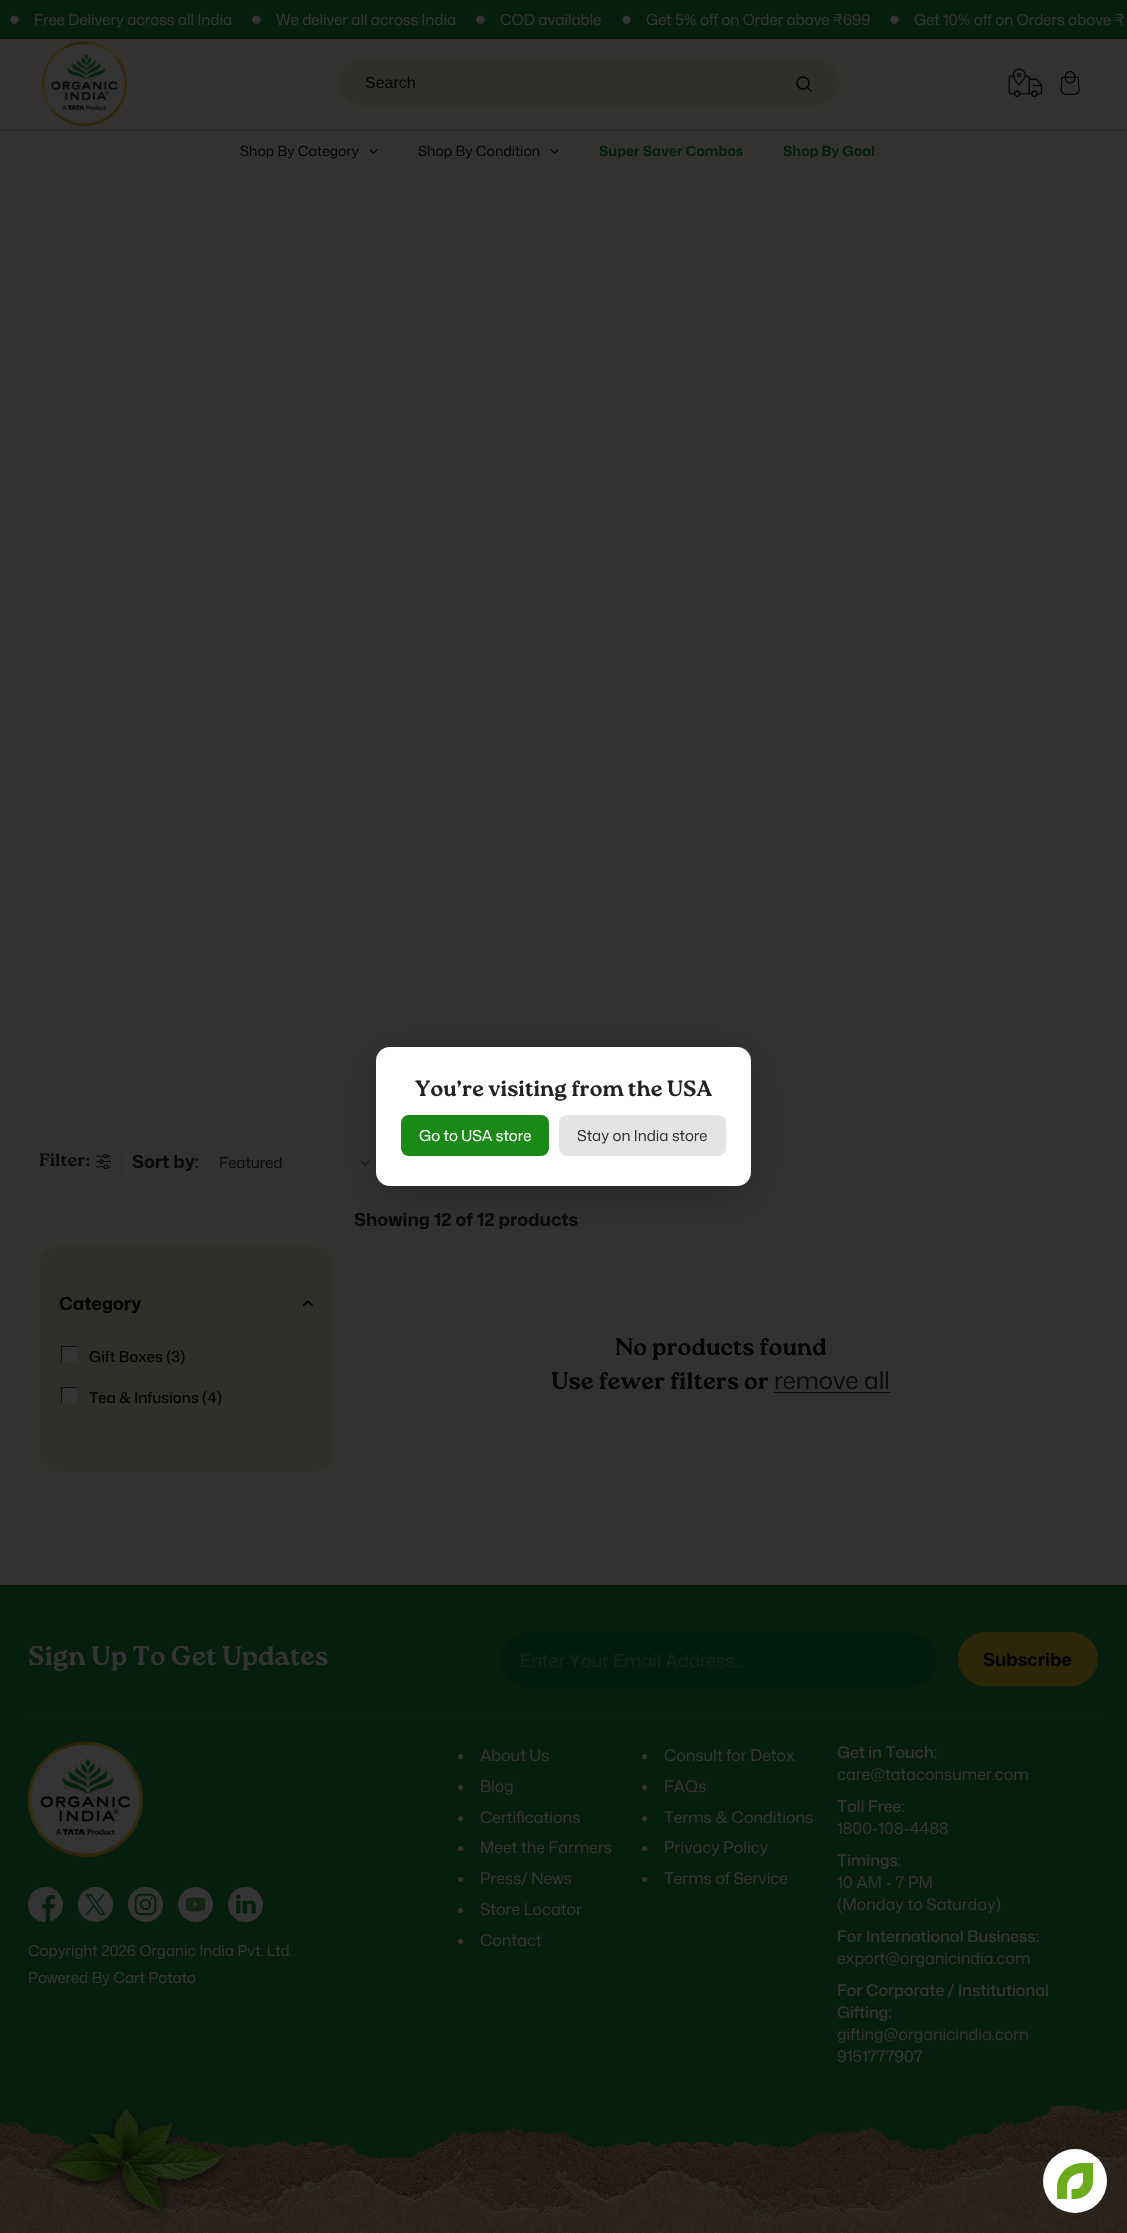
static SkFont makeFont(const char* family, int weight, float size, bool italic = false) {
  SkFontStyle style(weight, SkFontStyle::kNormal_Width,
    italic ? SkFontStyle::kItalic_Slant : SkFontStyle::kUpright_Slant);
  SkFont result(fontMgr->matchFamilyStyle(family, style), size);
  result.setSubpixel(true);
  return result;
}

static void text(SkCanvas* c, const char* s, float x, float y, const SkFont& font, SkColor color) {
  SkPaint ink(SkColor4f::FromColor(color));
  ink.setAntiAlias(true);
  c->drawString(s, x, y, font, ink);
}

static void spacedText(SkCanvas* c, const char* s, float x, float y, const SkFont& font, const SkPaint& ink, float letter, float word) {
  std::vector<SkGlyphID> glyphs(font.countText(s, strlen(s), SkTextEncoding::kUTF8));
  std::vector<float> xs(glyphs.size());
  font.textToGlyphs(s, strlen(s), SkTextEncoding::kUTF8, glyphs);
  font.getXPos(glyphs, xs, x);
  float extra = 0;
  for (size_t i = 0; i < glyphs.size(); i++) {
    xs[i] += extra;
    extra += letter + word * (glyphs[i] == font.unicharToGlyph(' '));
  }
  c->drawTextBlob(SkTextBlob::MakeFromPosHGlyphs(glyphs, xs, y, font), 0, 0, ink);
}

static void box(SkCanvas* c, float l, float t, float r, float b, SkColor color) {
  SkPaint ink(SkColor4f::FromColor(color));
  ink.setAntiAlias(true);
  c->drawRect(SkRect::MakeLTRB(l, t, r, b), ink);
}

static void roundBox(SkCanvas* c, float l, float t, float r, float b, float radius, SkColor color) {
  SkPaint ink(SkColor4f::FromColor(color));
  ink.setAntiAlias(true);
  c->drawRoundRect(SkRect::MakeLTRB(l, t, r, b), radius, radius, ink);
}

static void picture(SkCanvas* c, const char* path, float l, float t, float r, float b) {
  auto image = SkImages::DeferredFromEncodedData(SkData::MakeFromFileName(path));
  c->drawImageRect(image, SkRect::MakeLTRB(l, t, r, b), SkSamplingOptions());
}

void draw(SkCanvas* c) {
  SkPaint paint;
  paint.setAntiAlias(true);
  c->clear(0xff333231);
  box(c, 0, 0, 1127, 39, 0xff061e0e);
  SkFont face1 = makeFont("Mona Sans", 900, 30);
  paint.setColor(0xff343434);
  spacedText(c, "•", 10, 28, face1, paint, 15, 0);
  SkFont face2 = makeFont("Mona Sans", 400, 15);
  text(c, "Free Delivery across all India", 34, 25, face2, 0xff343434);
  spacedText(c, "•", 252, 28, face1, paint, 15, 0);
  text(c, "We deliver all across India", 276, 25, face2, 0xff343434);
  spacedText(c, "•", 476, 28, face1, paint, 15, 0);
  text(c, "COD available", 500, 25, face2, 0xff343434);
  spacedText(c, "•", 622, 28, face1, paint, 15, 0);
  text(c, "Get 5% off on Order above ₹699", 646, 25, face2, 0xff343434);
  spacedText(c, "•", 890, 28, face1, paint, 15, 0);
  text(c, "Get 10% off on Orders above ₹", 914, 25, face2, 0xff343434);
  picture(c, "img_01.png", 42, 41, 127, 126);
  roundBox(c, 339, 59, 839, 106, 23.5f, 0xff312f2b);
  SkFont face3 = makeFont("Liberation Sans", 400, 16);
  text(c, "Search", 365, 88, face3, 0xff040404);
  paint.setStyle(SkPaint::kStroke_Style);
  paint.setStrokeWidth(1.5f);
  paint.setColor(0xff000000);
  c->drawCircle(803, 83, 6, paint);
  paint.setStrokeCap(SkPaint::kRound_Cap);
  paint.setStrokeJoin(SkPaint::kRound_Join);
  c->drawPath(SkPathBuilder().moveTo(811, 91).lineTo(807.5f, 87.5f).detach(), paint);
  picture(c, "img_02.png", 1008, 68, 1043, 97);
  picture(c, "img_03.png", 1060, 71, 1080, 95);
  SkFont face4 = makeFont("Mona Sans", 400, 14);
  text(c, "Shop By Category", 240, 156, face4, 0xff040404);
  picture(c, "img_04.png", 369, 149, 378, 154);
  text(c, "Shop By Condition", 418, 156, face4, 0xff040404);
  picture(c, "img_04.png", 550, 149, 559, 154);
  SkFont face5 = makeFont("Mona Sans", 700, 14);
  text(c, "Super Saver Combos", 599, 156, face5, 0xff061e0e);
  text(c, "Shop By Goal", 783, 156, face5, 0xff061e0e);
  box(c, 0, 129, 1127, 131, 0xff2d2d2b);
  picture(c, "img_06.png", 360, 1160, 370, 1166);
  roundBox(c, 39, 1246, 333, 1472, 20, 0xff312f2b);
  paint.setStyle(SkPaint::kFill_Style);
  paint.setColor(0x33000000);
  paint.setMaskFilter(SkMaskFilter::MakeBlur(kNormal_SkBlurStyle, 20));
  c->drawRoundRect(SkRect::MakeLTRB(376, 1057, 751, 1196), 14, 14, paint);
  paint.setMaskFilter(nullptr);
  roundBox(c, 376, 1047, 751, 1186, 14, 0xffffffff);
  SkFont face6 = makeFont("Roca", 700, 22);
  text(c, "You’re visiting from the USA", 415, 1096, face6, 0xff222222);
  roundBox(c, 401, 1115, 549, 1156, 8, 0xff1a8917);
  text(c, "Go to USA store", 419, 1141, face2, 0xffffffff);
  roundBox(c, 559, 1115, 726, 1156, 8, 0xffe4e4e4);
  text(c, "Stay on India store", 577, 1141, face2, 0xff343434);
  SkFont face7 = makeFont("Roca", 700, 18);
  text(c, "Filter:", 39, 1166, face7, 0xff0b0a0a);
  picture(c, "img_05.png", 96, 1154, 111, 1169);
  box(c, 121, 1148, 122, 1176, 0xff2f2c26);
  SkFont face8 = makeFont("Mona Sans", 700, 18);
  text(c, "Sort by:", 132, 1168, face8, 0xff0b0a0a);
  text(c, "Featured", 219, 1168, face2, 0xff0b0a0a);
  text(c, "Category", 59, 1310, face8, 0xff040404);
  picture(c, "img_07.png", 303, 1301, 313, 1307);
  box(c, 62, 1347, 77, 1362, 0xff343434);
  c->save();
  c->clipRect(SkRect::MakeLTRB(61, 1346, 77, 1362));
  paint.setStyle(SkPaint::kStroke_Style);
  paint.setStrokeWidth(1);
  paint.setStrokeCap(SkPaint::kButt_Cap);
  paint.setStrokeJoin(SkPaint::kMiter_Join);
  paint.setColor(0xff101010);
  c->drawRect(SkRect::MakeLTRB(61.5f, 1346.5f, 77.5f, 1362.5f), paint);
  c->restore();
  SkFont face9 = makeFont("Mona Sans", 500, 15);
  text(c, "Gift Boxes (3)", 89, 1362, face9, 0xff040404);
  box(c, 62, 1388, 77, 1403, 0xff343434);
  c->save();
  c->clipRect(SkRect::MakeLTRB(61, 1387, 77, 1403));
  c->drawRect(SkRect::MakeLTRB(61.5f, 1387.5f, 77.5f, 1403.5f), paint);
  c->restore();
  text(c, "Tea & Infusions (4)", 89, 1403, face9, 0xff040404);
  text(c, "Showing 12 of 12 products", 354, 1226, face8, 0xff0b0a0a);
  SkFont face10 = makeFont("Roca", 700, 24);
  text(c, "No products found", 615, 1355, face10, 0xff040404);
  text(c, "Use fewer filters or", 551, 1389, face10, 0xff040404);
  SkFont face11 = makeFont("Mona Sans", 400, 24);
  text(c, "remove all", 774, 1389, face11, 0xff0b0a0a);
  box(c, 774, 1392, 890, 1393, 0xff0b0a0a);
  box(c, 0, 1586, 1127, 2205, 0xff061e0e);
  box(c, 0, 1585, 1127, 1586, 0xff051c0e);
  box(c, 28, 1714, 1099, 1715, 0xff0f230c);
  SkFont face12 = makeFont("Roca", 700, 27);
  text(c, "Sign Up To Get Updates", 28, 1665, face12, 0xff343434);
  roundBox(c, 500, 1633, 937, 1687, 27, 0xff011b0c);
  roundBox(c, 958, 1632, 1098, 1686, 27, 0xff2d2609);
  text(c, "Subscribe", 983, 1666, face8, 0xff040404);
  SkFont face13 = makeFont("Mona Sans", 400, 18);
  text(c, "Enter Your Email Address...", 520, 1667, face13, 0xff14241b);
  paint.setStyle(SkPaint::kFill_Style);
  paint.setColor(0xff343434);
  c->drawCircle(460.5f, 1756.5f, 2.5f, paint);
  SkFont face14 = makeFont("Mona Sans", 400, 16);
  text(c, "About Us", 480, 1761, face14, 0xff343434);
  c->drawCircle(460.5f, 1787.5f, 2.5f, paint);
  text(c, "Blog", 480, 1792, face14, 0xff343434);
  c->drawCircle(460.5f, 1818.5f, 2.5f, paint);
  text(c, "Certifications", 480, 1823, face14, 0xff343434);
  c->drawCircle(460.5f, 1848.5f, 2.5f, paint);
  text(c, "Meet the Farmers", 480, 1853, face14, 0xff343434);
  c->drawCircle(460.5f, 1879.5f, 2.5f, paint);
  text(c, "Press/ News", 480, 1884, face14, 0xff343434);
  c->drawCircle(460.5f, 1910.5f, 2.5f, paint);
  text(c, "Store Locator", 480, 1915, face14, 0xff343434);
  c->drawCircle(460.5f, 1941.5f, 2.5f, paint);
  text(c, "Contact", 480, 1946, face14, 0xff343434);
  c->drawCircle(644.5f, 1756.5f, 2.5f, paint);
  text(c, "Consult for Detox", 664, 1761, face14, 0xff343434);
  c->drawCircle(644.5f, 1787.5f, 2.5f, paint);
  text(c, "FAQs", 664, 1792, face14, 0xff343434);
  c->drawCircle(644.5f, 1818.5f, 2.5f, paint);
  text(c, "Terms & Conditions", 664, 1823, face14, 0xff343434);
  c->drawCircle(644.5f, 1848.5f, 2.5f, paint);
  text(c, "Privacy Policy", 664, 1853, face14, 0xff343434);
  c->drawCircle(644.5f, 1879.5f, 2.5f, paint);
  text(c, "Terms of Service", 664, 1884, face14, 0xff343434);
  SkFont face15 = makeFont("Mona Sans", 500, 16);
  text(c, "Get in Touch:", 837, 1758, face15, 0xff343434);
  text(c, "care@tataconsumer.com", 837, 1780, face14, 0xff343434);
  text(c, "Toll Free:", 837, 1812, face15, 0xff343434);
  text(c, "1800-108-4488", 837, 1834, face14, 0xff343434);
  text(c, "Timings:", 837, 1866, face15, 0xff343434);
  text(c, "10 AM - 7 PM", 837, 1888, face14, 0xff343434);
  text(c, "(Monday to Saturday)", 837, 1910, face14, 0xff343434);
  text(c, "For International Business:", 837, 1942, face15, 0xff343434);
  text(c, "export@organicindia.com", 837, 1964, face14, 0xff343434);
  text(c, "For Corporate / Institutional", 837, 1996, face15, 0xff343434);
  text(c, "Gifting:", 837, 2018, face15, 0xff343434);
  text(c, "gifting@organicindia.com", 837, 2040, face14, 0xff343434);
  text(c, "9151777907", 837, 2062, face14, 0xff343434);
  picture(c, "img_08.png", 28, 1741, 143, 1857);
  picture(c, "img_09.png", 28, 1887, 63, 1922);
  picture(c, "img_10.png", 78, 1887, 113, 1922);
  picture(c, "img_11.png", 128, 1887, 163, 1922);
  picture(c, "img_12.png", 178, 1887, 213, 1922);
  picture(c, "img_13.png", 228, 1887, 263, 1922);
  text(c, "Copyright 2026 Organic India Pvt. Ltd.", 28, 1956, face2, 0xff343434);
  text(c, "Powered By Cart Potato", 28, 1983, face2, 0xff343434);
  picture(c, "img_14.png", 0, 2105, 1127, 2233);
  paint.setColor(0xffffffff);
  c->drawCircle(1075, 2181, 32, paint);
  paint.setColor(0xff6bac1b);
  c->drawPath(SkPathBuilder().moveTo(1093, 2163).lineTo(1093, 2181.5f).cubicTo(1093, 2191, 1085, 2198.5f, 1075.5f, 2199).lineTo(1071.5f, 2199).lineTo(1071.5f, 2189).lineTo(1075.5f, 2189).cubicTo(1079.5f, 2189, 1082.5f, 2185.5f, 1083, 2181.5f).lineTo(1083, 2173).cubicTo(1075, 2173, 1068.5f, 2177, 1067, 2185).lineTo(1067, 2199).lineTo(1057, 2199).lineTo(1057, 2187).cubicTo(1057.5f, 2174, 1068, 2163.5f, 1081, 2163).close().detach(), paint);
}
